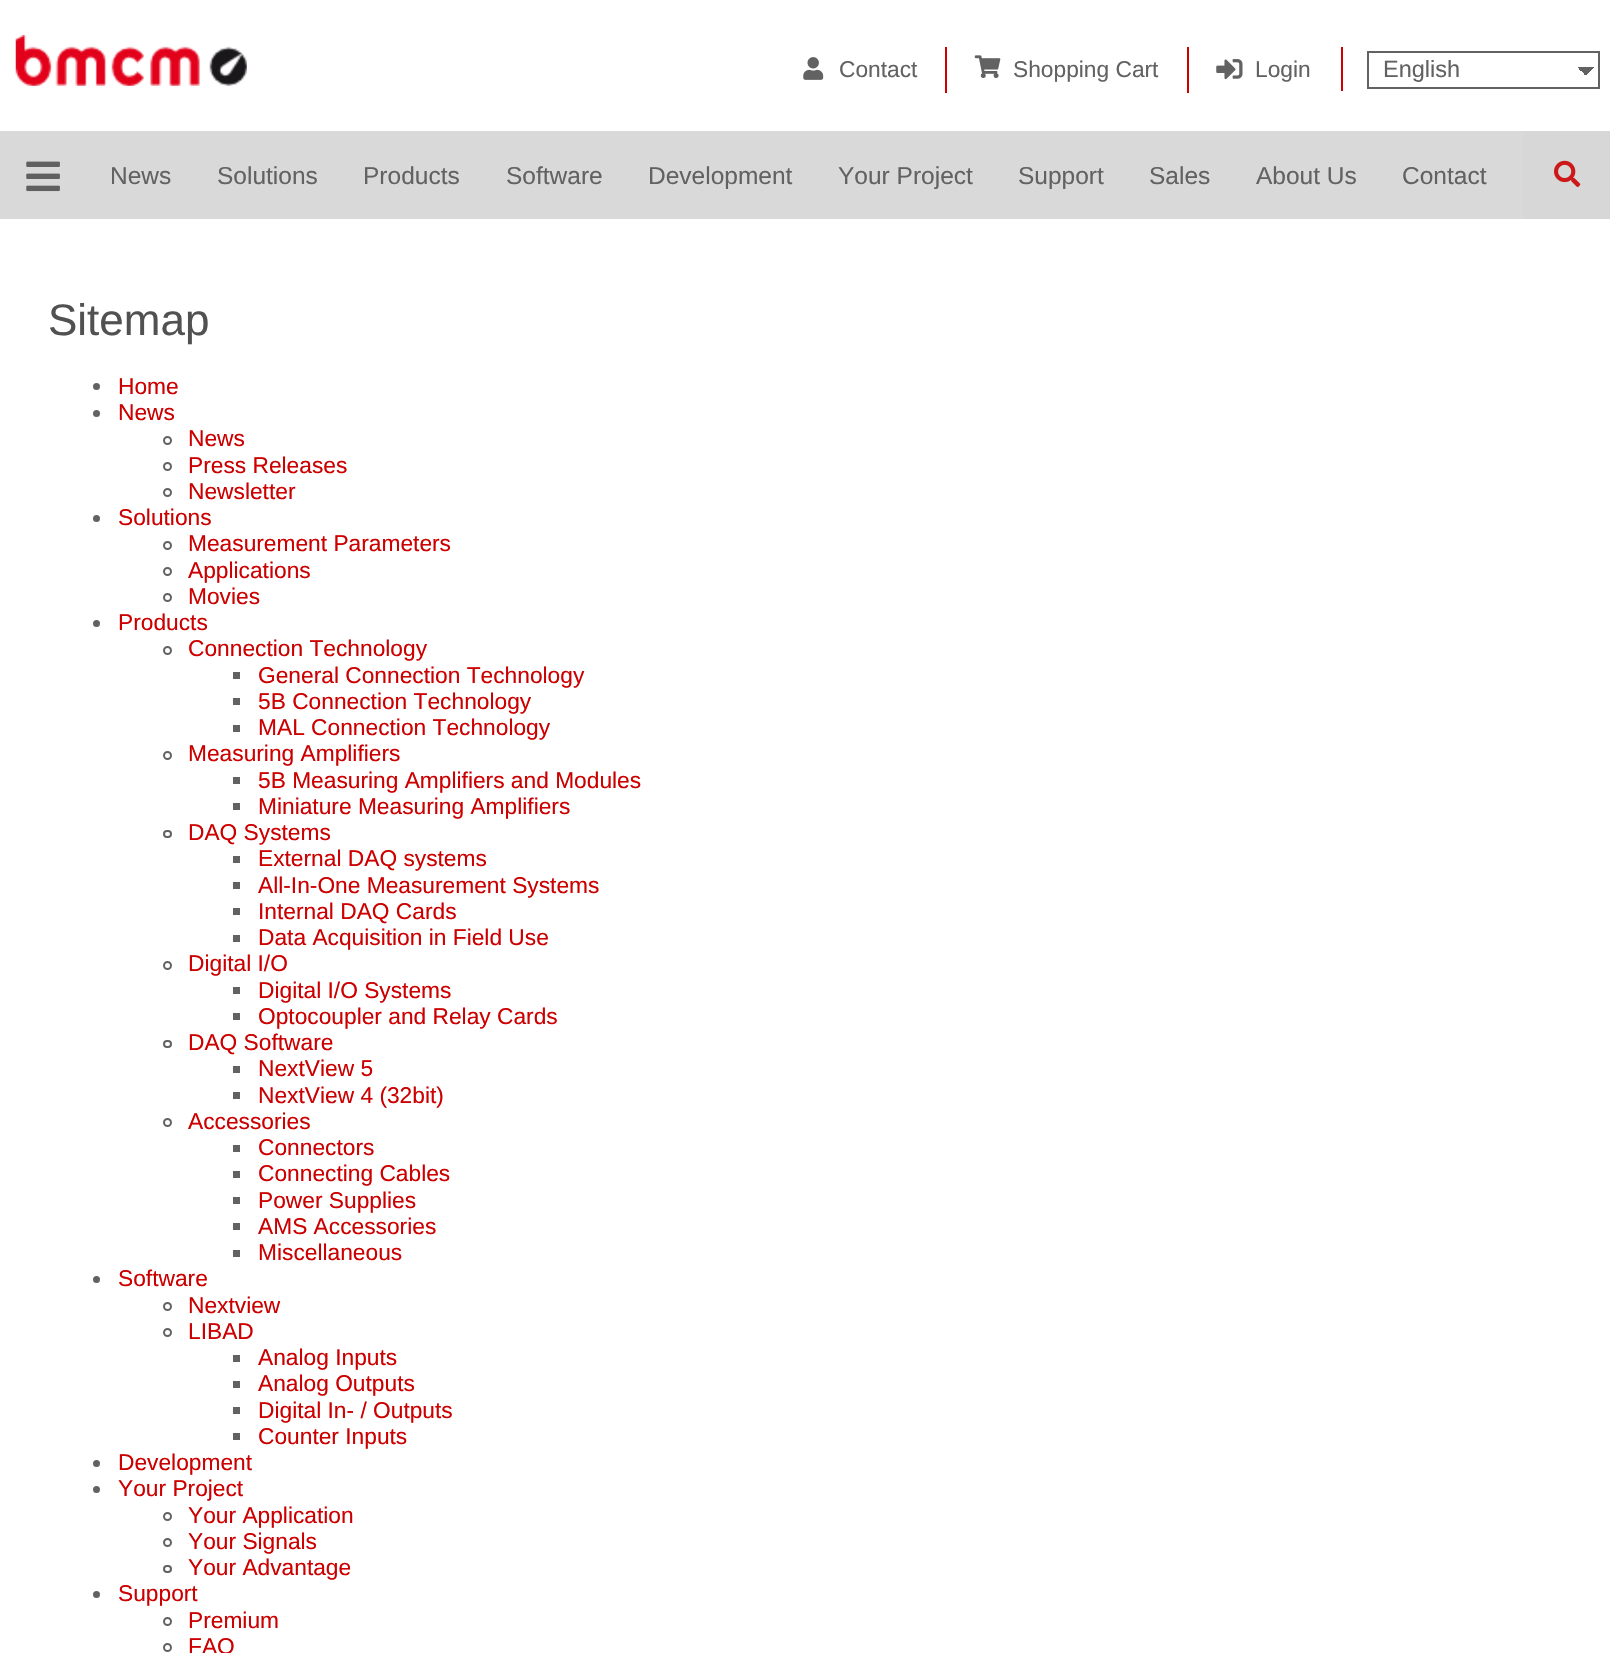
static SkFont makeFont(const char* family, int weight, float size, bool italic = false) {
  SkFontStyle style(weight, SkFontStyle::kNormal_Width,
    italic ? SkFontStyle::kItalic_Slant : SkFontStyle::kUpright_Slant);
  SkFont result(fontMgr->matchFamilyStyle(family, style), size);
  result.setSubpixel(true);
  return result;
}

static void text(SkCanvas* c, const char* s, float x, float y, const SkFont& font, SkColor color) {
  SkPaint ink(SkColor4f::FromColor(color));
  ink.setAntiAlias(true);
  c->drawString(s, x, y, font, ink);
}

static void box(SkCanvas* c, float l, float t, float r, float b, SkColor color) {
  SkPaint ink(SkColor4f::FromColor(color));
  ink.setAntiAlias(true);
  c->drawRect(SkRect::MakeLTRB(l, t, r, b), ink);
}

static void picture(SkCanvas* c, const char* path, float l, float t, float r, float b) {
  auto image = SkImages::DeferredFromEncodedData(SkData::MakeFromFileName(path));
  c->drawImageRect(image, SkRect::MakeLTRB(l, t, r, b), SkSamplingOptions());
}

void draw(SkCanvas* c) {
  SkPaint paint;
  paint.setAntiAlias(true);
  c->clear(0xffffffff);
  picture(c, "img_01.png", 15, 35, 247, 86);
  box(c, 945, 47, 947, 93, 0xffcc0000);
  picture(c, "img_02.png", 803, 57, 824, 80);
  SkFont face1 = makeFont("Liberation Sans", 400, 22.75f);
  text(c, "Contact", 839, 77, face1, 0xff626262);
  box(c, 1187, 47, 1189, 93, 0xffcc0000);
  picture(c, "img_03.png", 974, 55, 1001, 79);
  text(c, "Shopping Cart", 1013, 77, face1, 0xff626262);
  picture(c, "img_04.png", 1216, 59, 1243, 80);
  text(c, "Login", 1255, 77, face1, 0xff626262);
  box(c, 1341, 47, 1343, 91, 0xffcc0000);
  {
    const SkColor colors[] = {0xff626262, 0xffffffff};
    const float stops[] = {0.5f, 0.5f};
    const SkPoint ends[] = {{1586, 67}, {1594, 76}};
    paint.setShader(SkGradientShader::MakeLinear(ends, colors, stops, 2, SkTileMode::kClamp));
    paint.setAlpha(255);
  }
  c->drawRect(SkRect::MakeLTRB(1586, 67, 1594, 75), paint);
  {
    const SkColor colors[] = {0xffffffff, 0xff626262};
    const float stops[] = {0.5f, 0.5f};
    const SkPoint ends[] = {{1577, 76}, {1586, 67}};
    paint.setShader(SkGradientShader::MakeLinear(ends, colors, stops, 2, SkTileMode::kClamp));
    paint.setAlpha(255);
  }
  c->drawRect(SkRect::MakeLTRB(1577, 67, 1586, 75), paint);
  paint.setStyle(SkPaint::kStroke_Style);
  paint.setStrokeWidth(2);
  paint.setShader(nullptr);
  paint.setColor(0xff626262);
  c->drawRect(SkRect::MakeLTRB(1368, 52, 1599, 88), paint);
  SkFont face2 = makeFont("Liberation Sans", 400, 23.5f);
  text(c, "English", 1383, 77, face2, 0xff626262);
  box(c, 0, 131, 1523, 219, 0xffd9d9d9);
  picture(c, "img_05.png", 26, 161, 60, 192);
  SkFont face3 = makeFont("Liberation Sans", 400, 24.5f);
  text(c, "News", 110, 184, face3, 0xff626262);
  text(c, "Solutions", 217, 184, face3, 0xff626262);
  text(c, "Products", 363, 184, face3, 0xff626262);
  text(c, "Software", 506, 184, face3, 0xff626262);
  text(c, "Development", 648, 184, face3, 0xff626262);
  text(c, "Your Project", 838, 184, face3, 0xff626262);
  text(c, "Support", 1018, 184, face3, 0xff626262);
  text(c, "Sales", 1149, 184, face3, 0xff626262);
  text(c, "About Us", 1256, 184, face3, 0xff626262);
  text(c, "Contact", 1402, 184, face3, 0xff626262);
  box(c, 1523, 131, 1610, 219, 0xffd7d7d7);
  picture(c, "img_06.png", 1554, 160, 1581, 187);
  SkFont face4 = makeFont("Liberation Sans", 400, 44);
  text(c, "Sitemap", 48, 335, face4, 0xff515151);
  paint.setStyle(SkPaint::kFill_Style);
  c->drawCircle(96.5f, 386.5f, 3.5f, paint);
  text(c, "Home", 118, 394, face1, 0xffcc0000);
  c->drawCircle(96.5f, 413.5f, 3.5f, paint);
  text(c, "News", 118, 420, face1, 0xffcc0000);
  paint.setStyle(SkPaint::kStroke_Style);
  c->drawCircle(167.5f, 440.5f, 3.5f, paint);
  text(c, "News", 188, 446, face1, 0xffcc0000);
  c->drawCircle(167.5f, 466.5f, 3.5f, paint);
  text(c, "Press Releases", 188, 473, face1, 0xffcc0000);
  c->drawCircle(167.5f, 492.5f, 3.5f, paint);
  text(c, "Newsletter", 188, 499, face1, 0xffcc0000);
  paint.setStyle(SkPaint::kFill_Style);
  c->drawCircle(96.5f, 518.5f, 3.5f, paint);
  text(c, "Solutions", 118, 525, face1, 0xffcc0000);
  paint.setStyle(SkPaint::kStroke_Style);
  c->drawCircle(167.5f, 545.5f, 3.5f, paint);
  text(c, "Measurement Parameters", 188, 551, face1, 0xffcc0000);
  c->drawCircle(167.5f, 571.5f, 3.5f, paint);
  text(c, "Applications", 188, 578, face1, 0xffcc0000);
  c->drawCircle(167.5f, 597.5f, 3.5f, paint);
  text(c, "Movies", 188, 604, face1, 0xffcc0000);
  paint.setStyle(SkPaint::kFill_Style);
  c->drawCircle(96.5f, 623.5f, 3.5f, paint);
  text(c, "Products", 118, 630, face1, 0xffcc0000);
  paint.setStyle(SkPaint::kStroke_Style);
  c->drawCircle(167.5f, 650.5f, 3.5f, paint);
  text(c, "Connection Technology", 188, 656, face1, 0xffcc0000);
  box(c, 233, 672, 240, 679, 0xff626262);
  text(c, "General Connection Technology", 258, 683, face1, 0xffcc0000);
  box(c, 233, 698, 240, 705, 0xff626262);
  text(c, "5B Connection Technology", 258, 709, face1, 0xffcc0000);
  box(c, 233, 725, 240, 732, 0xff626262);
  text(c, "MAL Connection Technology", 258, 735, face1, 0xffcc0000);
  c->drawCircle(167.5f, 755.5f, 3.5f, paint);
  text(c, "Measuring Amplifiers", 188, 761, face1, 0xffcc0000);
  box(c, 233, 777, 240, 784, 0xff626262);
  text(c, "5B Measuring Amplifiers and Modules", 258, 788, face1, 0xffcc0000);
  box(c, 233, 803, 240, 810, 0xff626262);
  text(c, "Miniature Measuring Amplifiers", 258, 814, face1, 0xffcc0000);
  c->drawRoundRect(SkRect::MakeLTRB(164, 831, 171, 837), 3, 3, paint);
  text(c, "DAQ Systems", 188, 840, face1, 0xffcc0000);
  box(c, 233, 856, 240, 863, 0xff626262);
  text(c, "External DAQ systems", 258, 866, face1, 0xffcc0000);
  box(c, 233, 882, 240, 889, 0xff626262);
  text(c, "All-In-One Measurement Systems", 258, 893, face1, 0xffcc0000);
  box(c, 233, 908, 240, 915, 0xff626262);
  text(c, "Internal DAQ Cards", 258, 919, face1, 0xffcc0000);
  box(c, 233, 935, 240, 942, 0xff626262);
  text(c, "Data Acquisition in Field Use", 258, 945, face1, 0xffcc0000);
  c->drawCircle(167.5f, 965.5f, 3.5f, paint);
  text(c, "Digital I/O", 188, 971, face1, 0xffcc0000);
  box(c, 233, 987, 240, 994, 0xff626262);
  text(c, "Digital I/O Systems", 258, 998, face1, 0xffcc0000);
  box(c, 233, 1013, 240, 1020, 0xff626262);
  text(c, "Optocoupler and Relay Cards", 258, 1024, face1, 0xffcc0000);
  c->drawRoundRect(SkRect::MakeLTRB(164, 1041, 171, 1047), 3, 3, paint);
  text(c, "DAQ Software", 188, 1050, face1, 0xffcc0000);
  box(c, 233, 1066, 240, 1073, 0xff626262);
  text(c, "NextView 5", 258, 1076, face1, 0xffcc0000);
  box(c, 233, 1092, 240, 1099, 0xff626262);
  text(c, "NextView 4 (32bit)", 258, 1103, face1, 0xffcc0000);
  c->drawCircle(167.5f, 1122.5f, 3.5f, paint);
  text(c, "Accessories", 188, 1129, face1, 0xffcc0000);
  box(c, 233, 1145, 240, 1152, 0xff626262);
  text(c, "Connectors", 258, 1155, face1, 0xffcc0000);
  box(c, 233, 1171, 240, 1178, 0xff626262);
  text(c, "Connecting Cables", 258, 1181, face1, 0xffcc0000);
  box(c, 233, 1197, 240, 1204, 0xff626262);
  text(c, "Power Supplies", 258, 1208, face1, 0xffcc0000);
  box(c, 233, 1223, 240, 1230, 0xff626262);
  text(c, "AMS Accessories", 258, 1234, face1, 0xffcc0000);
  box(c, 233, 1250, 240, 1257, 0xff626262);
  text(c, "Miscellaneous", 258, 1260, face1, 0xffcc0000);
  paint.setStyle(SkPaint::kFill_Style);
  c->drawCircle(96.5f, 1279.5f, 3.5f, paint);
  text(c, "Software", 118, 1286, face1, 0xffcc0000);
  paint.setStyle(SkPaint::kStroke_Style);
  c->drawCircle(167.5f, 1306.5f, 3.5f, paint);
  text(c, "Nextview", 188, 1313, face1, 0xffcc0000);
  c->drawCircle(167.5f, 1332.5f, 3.5f, paint);
  text(c, "LIBAD", 188, 1339, face1, 0xffcc0000);
  box(c, 233, 1355, 240, 1362, 0xff626262);
  text(c, "Analog Inputs", 258, 1365, face1, 0xffcc0000);
  box(c, 233, 1381, 240, 1388, 0xff626262);
  text(c, "Analog Outputs", 258, 1391, face1, 0xffcc0000);
  box(c, 233, 1407, 240, 1414, 0xff626262);
  text(c, "Digital In- / Outputs", 258, 1418, face1, 0xffcc0000);
  box(c, 233, 1433, 240, 1440, 0xff626262);
  text(c, "Counter Inputs", 258, 1444, face1, 0xffcc0000);
  paint.setStyle(SkPaint::kFill_Style);
  c->drawCircle(96.5f, 1463.5f, 3.5f, paint);
  text(c, "Development", 118, 1470, face1, 0xffcc0000);
  c->drawCircle(96.5f, 1489.5f, 3.5f, paint);
  text(c, "Your Project", 118, 1496, face1, 0xffcc0000);
  paint.setStyle(SkPaint::kStroke_Style);
  c->drawCircle(167.5f, 1516.5f, 3.5f, paint);
  text(c, "Your Application", 188, 1523, face1, 0xffcc0000);
  c->drawCircle(167.5f, 1542.5f, 3.5f, paint);
  text(c, "Your Signals", 188, 1549, face1, 0xffcc0000);
  c->drawRoundRect(SkRect::MakeLTRB(164, 1566, 171, 1572), 3, 3, paint);
  text(c, "Your Advantage", 188, 1575, face1, 0xffcc0000);
  paint.setStyle(SkPaint::kFill_Style);
  c->drawCircle(96.5f, 1594.5f, 3.5f, paint);
  text(c, "Support", 118, 1601, face1, 0xffcc0000);
  paint.setStyle(SkPaint::kStroke_Style);
  c->drawCircle(167.5f, 1621.5f, 3.5f, paint);
  text(c, "Premium", 188, 1628, face1, 0xffcc0000);
  c->drawCircle(167.5f, 1647.5f, 3.5f, paint);
  text(c, "FAQ", 188, 1654, face1, 0xffcc0000);
}
